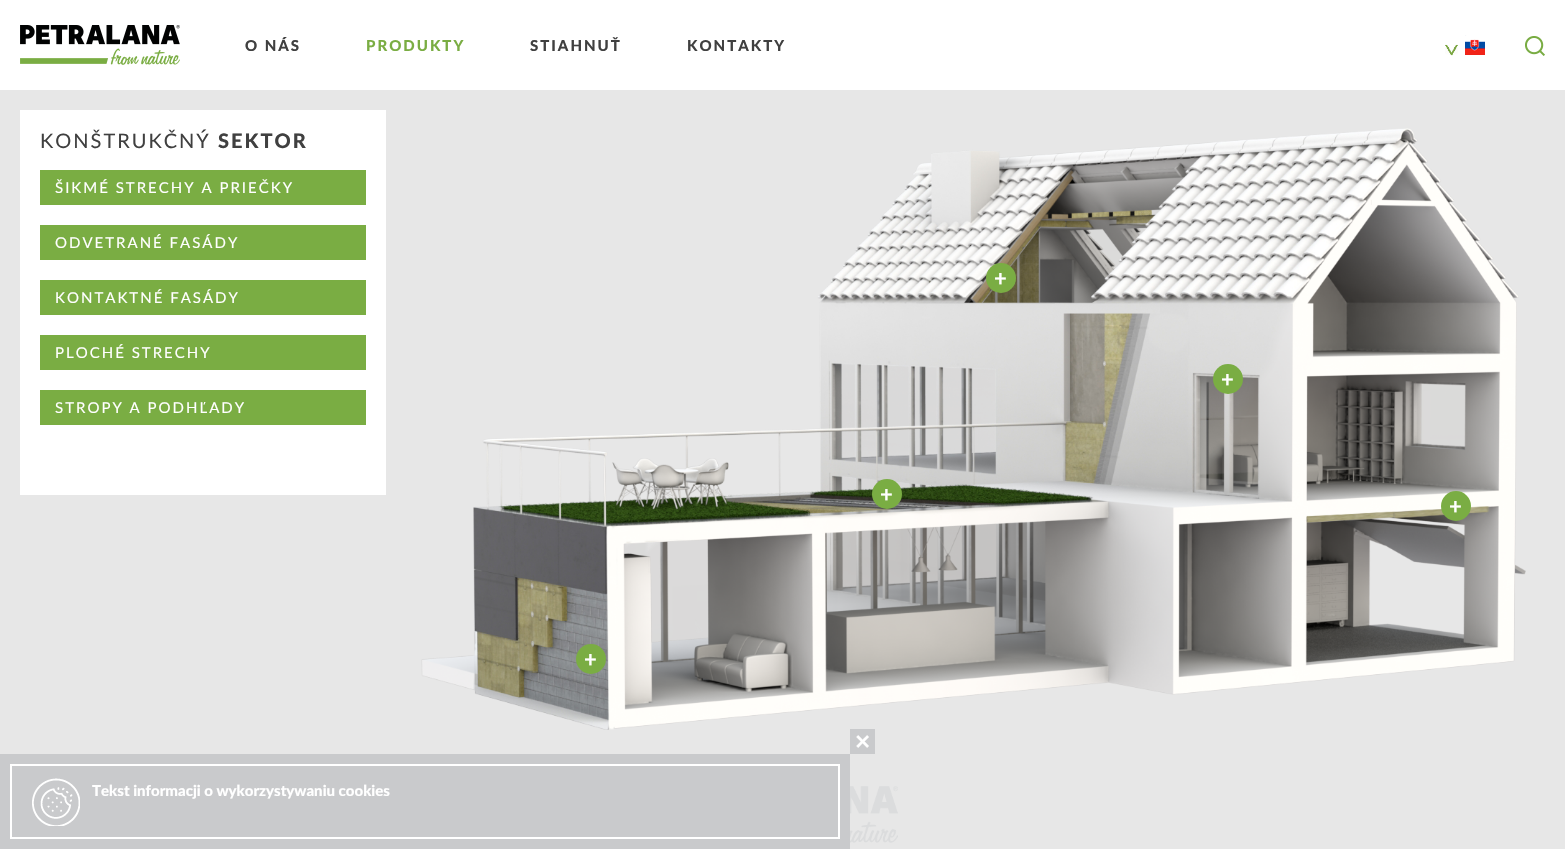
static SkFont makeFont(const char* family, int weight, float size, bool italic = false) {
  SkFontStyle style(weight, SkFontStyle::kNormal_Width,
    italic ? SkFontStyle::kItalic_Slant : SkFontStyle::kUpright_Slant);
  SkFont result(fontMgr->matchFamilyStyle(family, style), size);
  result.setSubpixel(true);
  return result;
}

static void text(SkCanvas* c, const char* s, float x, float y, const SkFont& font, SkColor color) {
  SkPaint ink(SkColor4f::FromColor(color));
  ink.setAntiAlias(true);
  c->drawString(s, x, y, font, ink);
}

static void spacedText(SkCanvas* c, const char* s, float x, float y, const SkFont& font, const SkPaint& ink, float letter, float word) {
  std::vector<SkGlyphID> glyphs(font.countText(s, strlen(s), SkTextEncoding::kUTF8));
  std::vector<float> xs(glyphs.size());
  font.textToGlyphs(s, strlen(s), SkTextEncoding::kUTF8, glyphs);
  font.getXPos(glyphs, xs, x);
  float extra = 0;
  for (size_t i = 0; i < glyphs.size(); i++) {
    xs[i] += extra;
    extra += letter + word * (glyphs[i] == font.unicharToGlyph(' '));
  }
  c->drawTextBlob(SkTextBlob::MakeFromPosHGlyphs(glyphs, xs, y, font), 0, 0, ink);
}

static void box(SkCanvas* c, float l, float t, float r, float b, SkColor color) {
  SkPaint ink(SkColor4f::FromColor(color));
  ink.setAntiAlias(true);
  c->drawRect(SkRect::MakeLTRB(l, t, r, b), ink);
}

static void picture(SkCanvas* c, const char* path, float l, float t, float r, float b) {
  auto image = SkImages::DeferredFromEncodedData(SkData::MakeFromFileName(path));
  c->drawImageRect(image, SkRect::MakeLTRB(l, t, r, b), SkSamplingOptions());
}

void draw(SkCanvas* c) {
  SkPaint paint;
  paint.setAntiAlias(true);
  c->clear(0xffe7e7e7);
  box(c, 0, 0, 1565, 90, 0xffffffff);
  picture(c, "img_01.png", 20, 25, 180, 65);
  SkFont face1 = makeFont("Lato", 900, 15);
  paint.setColor(0xff404040);
  spacedText(c, "O NÁS", 245, 51, face1, paint, 2, 0);
  paint.setColor(0xff7aad43);
  spacedText(c, "PRODUKTY", 366, 51, face1, paint, 2, 0);
  paint.setColor(0xff404040);
  spacedText(c, "STIAHNUŤ", 530, 51, face1, paint, 2, 0);
  spacedText(c, "KONTAKTY", 687, 51, face1, paint, 2, 0);
  picture(c, "img_02.png", 1445, 44, 1458, 56);
  picture(c, "img_03.png", 1465, 35, 1485, 55);
  picture(c, "img_04.png", 1525, 36, 1545, 56);
  box(c, 20, 110, 386, 495, 0xffffffff);
  SkFont face2 = makeFont("Lato", 400, 20);
  spacedText(c, "KONŠTRUKČNÝ", 40, 148, face2, paint, 2, 0);
  SkFont face3 = makeFont("Lato", 900, 20);
  spacedText(c, "SEKTOR", 218, 148, face3, paint, 2, 0);
  box(c, 40, 170, 366, 205, 0xff7aad43);
  SkFont face4 = makeFont("Lato", 400, 15);
  paint.setColor(0xffffffff);
  spacedText(c, "ŠIKMÉ STRECHY A PRIEČKY", 55, 193, face4, paint, 2, 0);
  box(c, 40, 225, 366, 260, 0xff7aad43);
  spacedText(c, "ODVETRANÉ FASÁDY", 55, 248, face4, paint, 2, 0);
  box(c, 40, 280, 366, 315, 0xff7aad43);
  spacedText(c, "KONTAKTNÉ FASÁDY", 55, 303, face4, paint, 2, 0);
  box(c, 40, 335, 366, 370, 0xff7aad43);
  spacedText(c, "PLOCHÉ STRECHY", 55, 358, face4, paint, 2, 0);
  box(c, 40, 390, 366, 425, 0xff7aad43);
  spacedText(c, "STROPY A PODHĽADY", 55, 413, face4, paint, 2, 0);
  picture(c, "img_05.png", 421, 128, 1526, 730);
  paint.setColor(0xff7aad43);
  c->drawCircle(1001, 278, 15, paint);
  SkFont face5 = makeFont("Lato", 700, 22);
  paint.setColor(0xffffffff);
  spacedText(c, "+", 994, 286, face5, paint, 2, 0);
  paint.setColor(0xff7aad43);
  c->drawCircle(1228, 379, 15, paint);
  paint.setColor(0xffffffff);
  spacedText(c, "+", 1221, 387, face5, paint, 2, 0);
  paint.setColor(0xff7aad43);
  c->drawCircle(887, 494, 15, paint);
  paint.setColor(0xffffffff);
  spacedText(c, "+", 880, 502, face5, paint, 2, 0);
  paint.setColor(0xff7aad43);
  c->drawCircle(1456, 506, 15, paint);
  paint.setColor(0xffffffff);
  spacedText(c, "+", 1449, 514, face5, paint, 2, 0);
  paint.setColor(0xff7aad43);
  c->drawCircle(591, 659, 15, paint);
  paint.setColor(0xffffffff);
  spacedText(c, "+", 584, 667, face5, paint, 2, 0);
  box(c, 0, 754, 850, 849, 0xffc9cacc);
  box(c, 850, 729, 875, 754, 0xffc9cacc);
  SkFont face6 = makeFont("DejaVu Sans", 700, 20);
  text(c, "✕", 854, 749, face6, 0xffffffff);
  picture(c, "img_06.png", 32, 778, 80, 826);
  paint.setStyle(SkPaint::kStroke_Style);
  paint.setStrokeWidth(2);
  c->drawRect(SkRect::MakeLTRB(11, 765, 839, 838), paint);
  text(c, "Tekst informacji o wykorzystywaniu cookies", 92, 796, face1, 0xffffffff);
  picture(c, "img_07.png", 850, 786, 898, 843);
}
